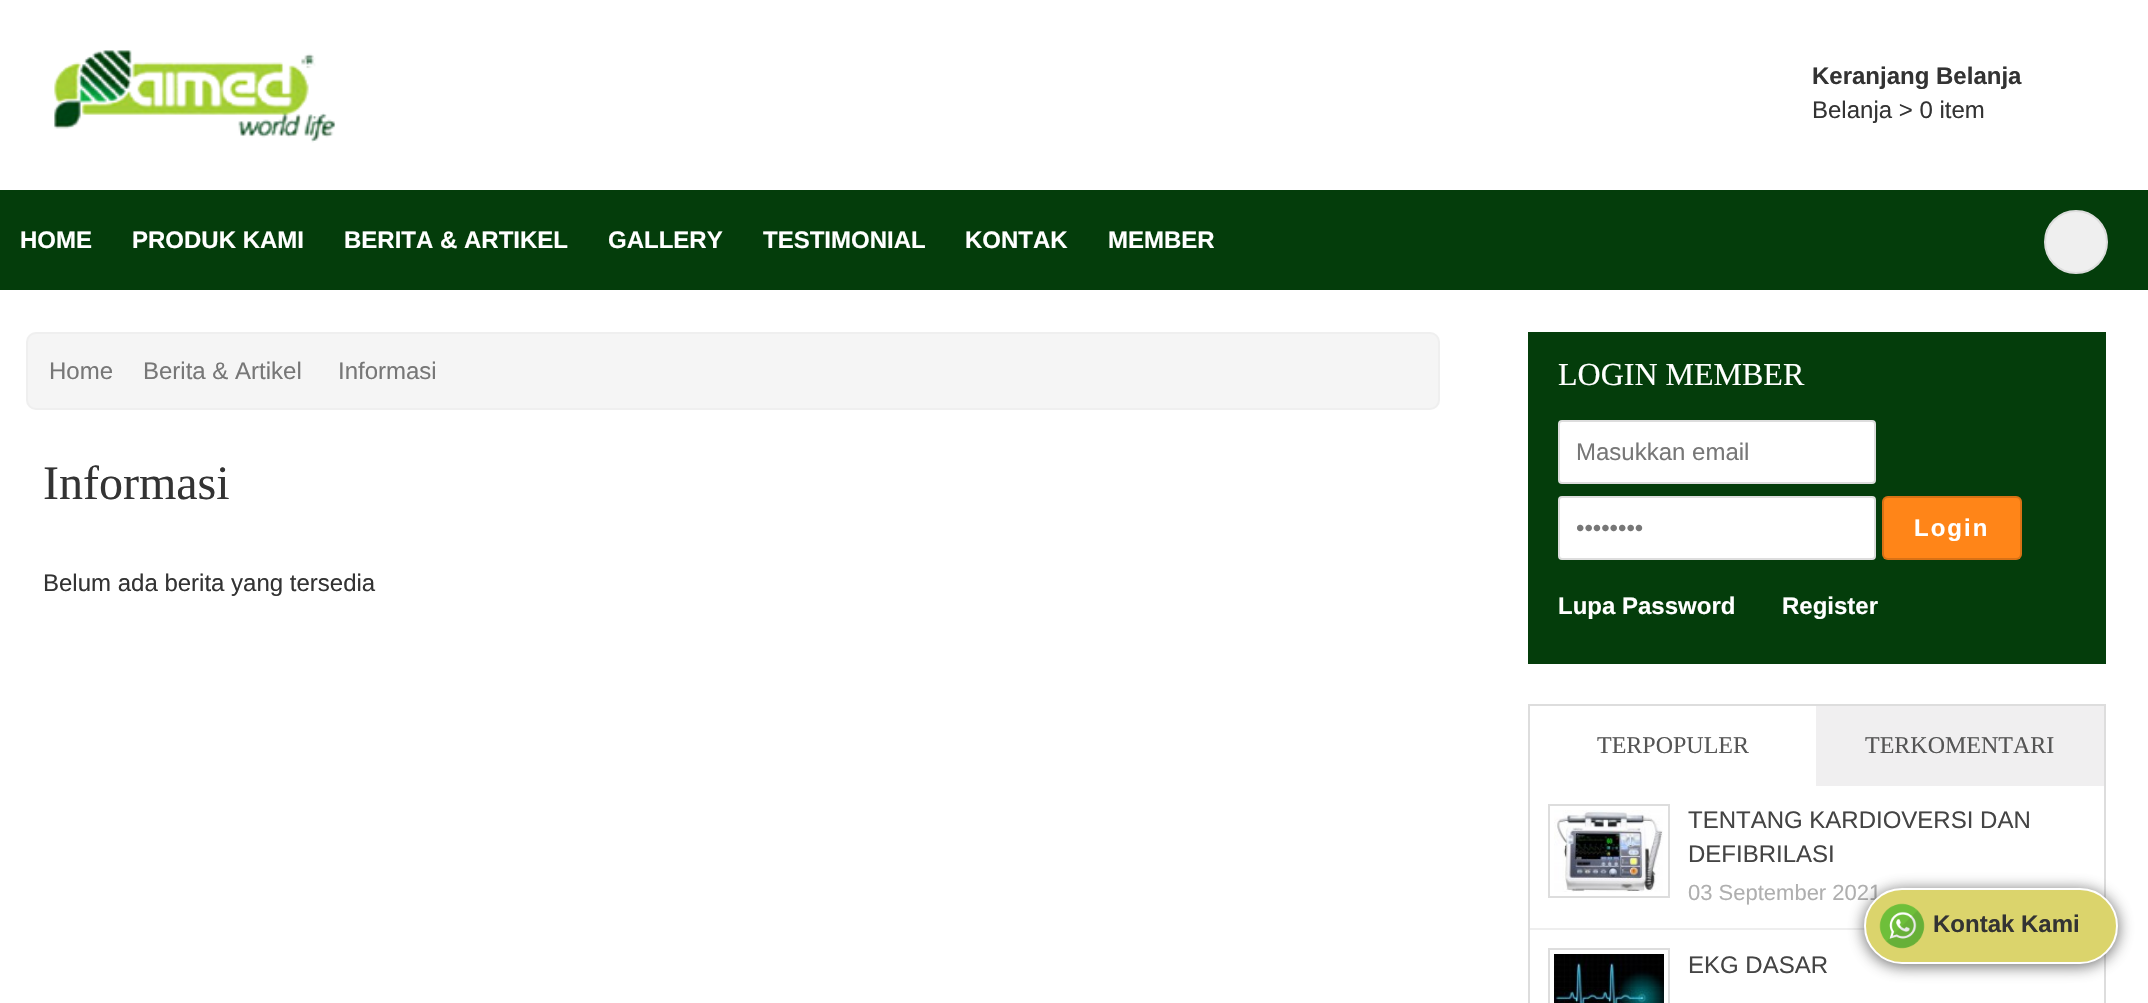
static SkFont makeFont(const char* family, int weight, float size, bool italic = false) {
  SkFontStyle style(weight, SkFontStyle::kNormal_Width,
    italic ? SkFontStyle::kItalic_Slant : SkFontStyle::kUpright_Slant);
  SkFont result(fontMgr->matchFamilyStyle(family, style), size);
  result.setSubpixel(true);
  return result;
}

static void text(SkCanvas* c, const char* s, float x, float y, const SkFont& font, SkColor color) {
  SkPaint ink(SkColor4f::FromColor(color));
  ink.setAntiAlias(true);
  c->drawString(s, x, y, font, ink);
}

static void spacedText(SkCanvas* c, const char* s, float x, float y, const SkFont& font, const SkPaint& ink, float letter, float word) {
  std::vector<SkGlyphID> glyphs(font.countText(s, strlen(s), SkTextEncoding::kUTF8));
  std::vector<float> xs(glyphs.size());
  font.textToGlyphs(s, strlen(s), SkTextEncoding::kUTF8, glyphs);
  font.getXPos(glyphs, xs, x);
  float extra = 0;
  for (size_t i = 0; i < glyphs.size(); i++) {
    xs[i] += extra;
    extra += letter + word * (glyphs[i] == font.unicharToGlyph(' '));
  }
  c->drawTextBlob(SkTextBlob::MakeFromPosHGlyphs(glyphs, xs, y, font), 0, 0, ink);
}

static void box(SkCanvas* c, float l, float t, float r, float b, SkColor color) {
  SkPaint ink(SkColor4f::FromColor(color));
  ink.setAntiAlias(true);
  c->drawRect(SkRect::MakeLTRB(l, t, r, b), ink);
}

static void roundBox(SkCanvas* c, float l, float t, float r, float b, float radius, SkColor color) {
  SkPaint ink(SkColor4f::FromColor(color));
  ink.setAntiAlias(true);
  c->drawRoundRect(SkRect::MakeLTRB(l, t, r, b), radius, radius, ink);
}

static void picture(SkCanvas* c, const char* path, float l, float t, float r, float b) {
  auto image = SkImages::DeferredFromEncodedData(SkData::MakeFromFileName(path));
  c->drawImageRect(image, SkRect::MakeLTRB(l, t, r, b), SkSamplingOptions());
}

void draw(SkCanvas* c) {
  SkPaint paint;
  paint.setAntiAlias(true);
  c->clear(0xffffffff);
  picture(c, "img_01.png", 54, 50, 336, 143);
  SkFont face1 = makeFont("Liberation Sans", 700, 24);
  text(c, "Keranjang Belanja", 1812, 84, face1, 0xff333333);
  SkFont face2 = makeFont("Liberation Sans", 400, 24);
  text(c, "Belanja > 0 item", 1812, 118, face2, 0xff333333);
  box(c, 0, 190, 2148, 290, 0xff043d0b);
  text(c, "HOME", 20, 248, face1, 0xffffffff);
  text(c, "PRODUK KAMI", 132, 248, face1, 0xffffffff);
  text(c, "BERITA & ARTIKEL", 344, 248, face1, 0xffffffff);
  text(c, "GALLERY", 608, 248, face1, 0xffffffff);
  text(c, "TESTIMONIAL", 763, 248, face1, 0xffffffff);
  text(c, "KONTAK", 965, 248, face1, 0xffffffff);
  text(c, "MEMBER", 1108, 248, face1, 0xffffffff);
  paint.setColor(0xffefefef);
  c->drawCircle(2076, 242, 31, paint);
  paint.setStyle(SkPaint::kStroke_Style);
  paint.setStrokeWidth(2);
  paint.setColor(0xffdddddd);
  c->drawCircle(2076, 242, 31, paint);
  paint.setStyle(SkPaint::kFill_Style);
  paint.setColor(0xfff5f5f5);
  c->drawRoundRect(SkRect::MakeLTRB(27, 333, 1439, 409), 9, 9, paint);
  paint.setStyle(SkPaint::kStroke_Style);
  paint.setColor(0xffefefef);
  c->drawRoundRect(SkRect::MakeLTRB(27, 333, 1439, 409), 9, 9, paint);
  text(c, "Home", 49, 379, face2, 0xff777777);
  text(c, "Berita & Artikel", 143, 379, face2, 0xff777777);
  text(c, "Informasi", 338, 379, face2, 0xff777777);
  SkFont face3 = makeFont("Liberation Serif", 400, 48);
  text(c, "Informasi", 43, 499, face3, 0xff333333);
  text(c, "Belum ada berita yang tersedia", 43, 591, face2, 0xff333333);
  box(c, 1528, 332, 2106, 664, 0xff043d0b);
  SkFont face4 = makeFont("Liberation Serif", 400, 32);
  text(c, "LOGIN MEMBER", 1558, 385, face4, 0xffffffff);
  paint.setStyle(SkPaint::kFill_Style);
  paint.setColor(0xffffffff);
  c->drawRoundRect(SkRect::MakeLTRB(1559, 421, 1875, 483), 3, 3, paint);
  paint.setStyle(SkPaint::kStroke_Style);
  paint.setColor(0xffdddddd);
  c->drawRoundRect(SkRect::MakeLTRB(1559, 421, 1875, 483), 3, 3, paint);
  text(c, "Masukkan email", 1576, 460, face2, 0xff777777);
  paint.setStyle(SkPaint::kFill_Style);
  paint.setColor(0xffffffff);
  c->drawRoundRect(SkRect::MakeLTRB(1559, 497, 1875, 559), 3, 3, paint);
  paint.setStyle(SkPaint::kStroke_Style);
  paint.setColor(0xffdddddd);
  c->drawRoundRect(SkRect::MakeLTRB(1559, 497, 1875, 559), 3, 3, paint);
  text(c, "••••••••", 1576, 536, face2, 0xff777777);
  roundBox(c, 1882, 496, 2022, 560, 6, 0xffff8518);
  paint.setColor(0x26000000);
  c->drawRoundRect(SkRect::MakeLTRB(1883, 497, 2021, 559), 5, 5, paint);
  paint.setStyle(SkPaint::kFill_Style);
  paint.setColor(0xffffffff);
  spacedText(c, "Login", 1914, 536, face1, paint, 2, 0);
  text(c, "Lupa Password", 1558, 614, face1, 0xffffffff);
  text(c, "Register", 1782, 614, face1, 0xffffffff);
  paint.setStyle(SkPaint::kStroke_Style);
  paint.setColor(0xffdddddd);
  c->drawRect(SkRect::MakeLTRB(1529, 705, 2105, 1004), paint);
  SkFont face5 = makeFont("Liberation Serif", 400, 24);
  text(c, "TERPOPULER", 1597, 753, face5, 0xff555555);
  box(c, 1816, 706, 2104, 786, 0xfff0eff0);
  text(c, "TERKOMENTARI", 1865, 753, face5, 0xff555555);
  box(c, 1530, 928, 1865, 930, 0xffeeeeee);
  c->drawRect(SkRect::MakeLTRB(1549, 805, 1669, 897), paint);
  picture(c, "img_02.png", 1554, 810, 1663, 892);
  text(c, "TENTANG KARDIOVERSI DAN", 1688, 828, face2, 0xff444444);
  text(c, "DEFIBRILASI", 1688, 862, face2, 0xff444444);
  SkFont face6 = makeFont("Liberation Sans", 400, 22);
  text(c, "03 September 2021", 1688, 900, face6, 0xffafafaf);
  c->drawRect(SkRect::MakeLTRB(1549, 949, 1669, 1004), paint);
  picture(c, "img_03.png", 1554, 954, 1664, 1003);
  text(c, "EKG DASAR", 1688, 973, face2, 0xff444444);
  paint.setStyle(SkPaint::kFill_Style);
  paint.setColor(0xbf323232);
  paint.setMaskFilter(SkMaskFilter::MakeBlur(kNormal_SkBlurStyle, 8));
  c->drawRoundRect(SkRect::MakeLTRB(1864, 890, 2118, 966), 38, 38, paint);
  paint.setMaskFilter(nullptr);
  paint.setColor(0xffdbd46c);
  c->drawRoundRect(SkRect::MakeLTRB(1865, 889, 2117, 963), 37, 37, paint);
  paint.setStyle(SkPaint::kStroke_Style);
  paint.setColor(0xffffffff);
  c->drawRoundRect(SkRect::MakeLTRB(1865, 889, 2117, 963), 37, 37, paint);
  picture(c, "img_04.png", 1879, 903, 1925, 949);
  text(c, "Kontak Kami", 1933, 932, face1, 0xff333333);
}
